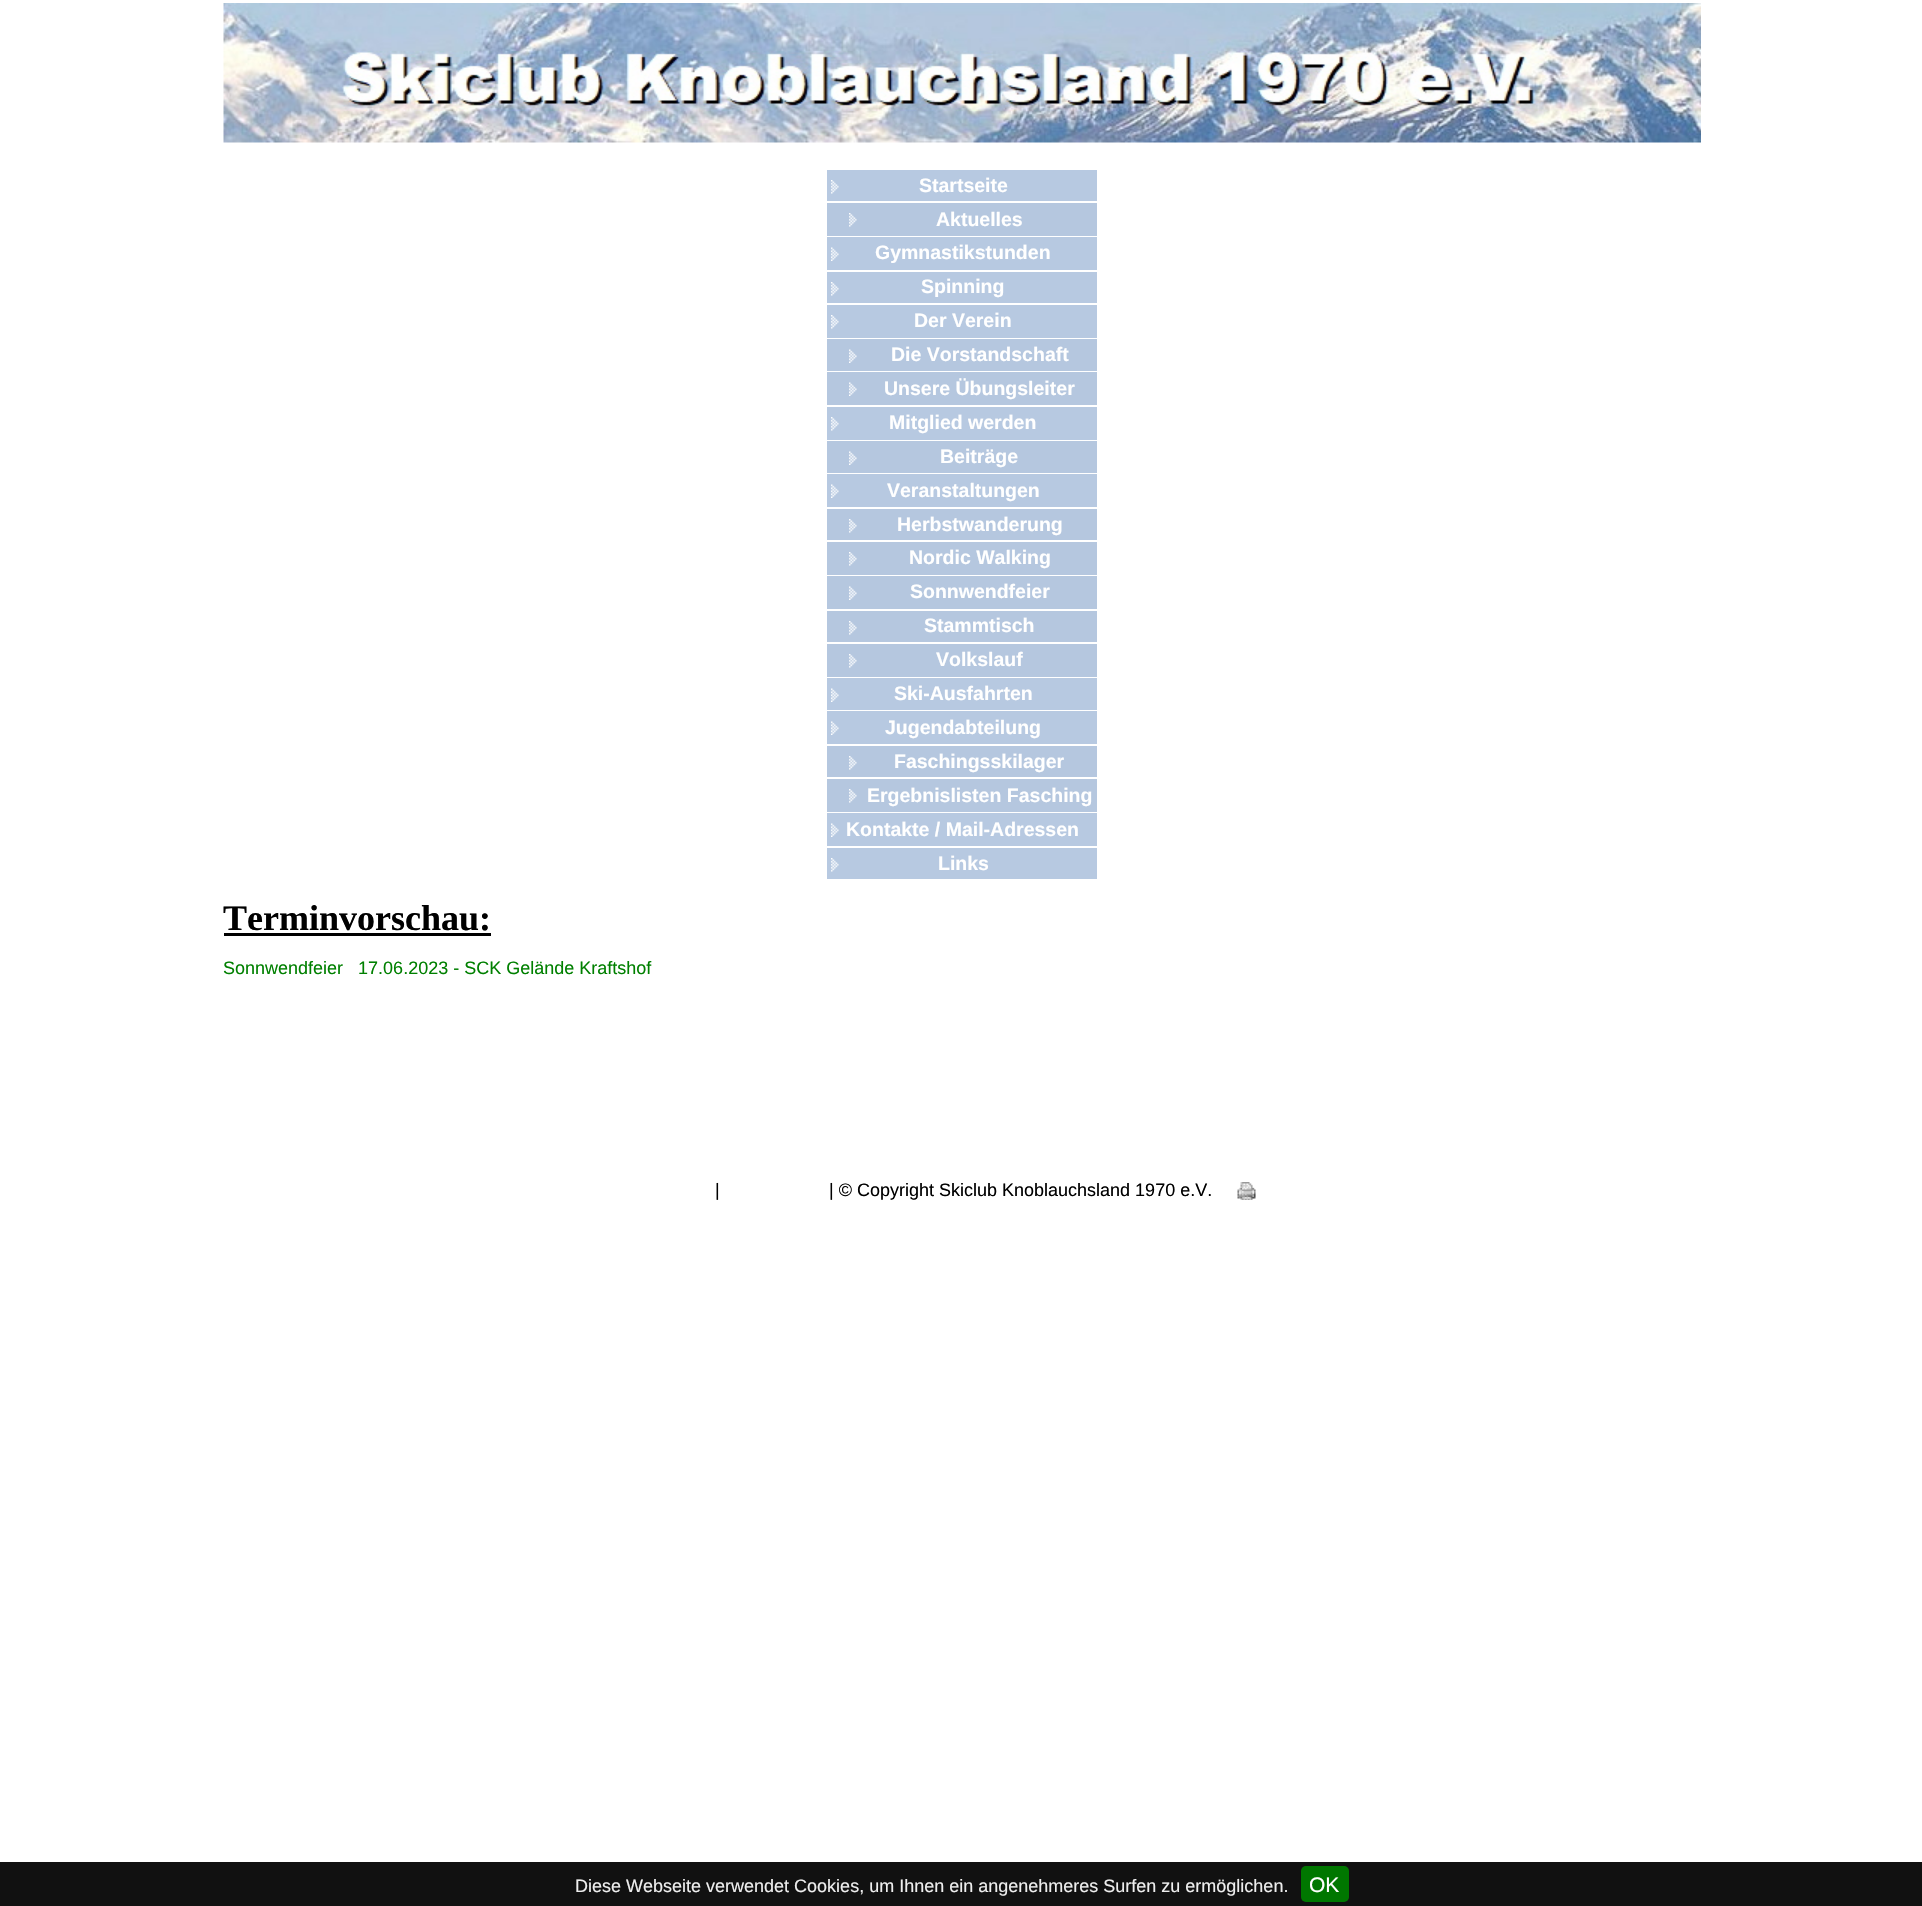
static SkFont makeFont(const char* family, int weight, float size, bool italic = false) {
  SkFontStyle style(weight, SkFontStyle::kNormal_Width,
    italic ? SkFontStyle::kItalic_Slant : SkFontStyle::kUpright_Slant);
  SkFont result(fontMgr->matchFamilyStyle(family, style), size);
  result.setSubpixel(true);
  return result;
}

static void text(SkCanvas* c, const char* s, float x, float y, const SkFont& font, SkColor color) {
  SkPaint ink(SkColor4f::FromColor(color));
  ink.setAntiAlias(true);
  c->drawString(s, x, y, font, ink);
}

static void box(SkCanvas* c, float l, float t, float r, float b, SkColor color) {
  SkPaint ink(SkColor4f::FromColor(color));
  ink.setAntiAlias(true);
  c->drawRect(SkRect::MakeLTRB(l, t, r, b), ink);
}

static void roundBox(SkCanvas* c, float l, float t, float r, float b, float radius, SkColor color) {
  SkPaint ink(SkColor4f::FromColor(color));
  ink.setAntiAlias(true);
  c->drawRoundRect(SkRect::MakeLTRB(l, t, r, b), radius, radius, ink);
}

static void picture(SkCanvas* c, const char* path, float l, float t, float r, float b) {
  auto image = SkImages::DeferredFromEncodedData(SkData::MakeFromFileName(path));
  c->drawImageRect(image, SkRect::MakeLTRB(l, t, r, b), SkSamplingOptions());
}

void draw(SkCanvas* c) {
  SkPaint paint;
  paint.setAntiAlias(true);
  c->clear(0xffffffff);
  picture(c, "img_01.png", 223, 3, 1701, 143);
  box(c, 827, 170, 1097, 201, 0xffb7c9e1);
  picture(c, "img_02.png", 831, 180, 839, 194);
  SkFont face1 = makeFont("Liberation Sans", 700, 19.5f);
  text(c, "Startseite", 919, 192, face1, 0xffffffff);
  box(c, 827, 203, 1097, 236, 0xffb5c7df);
  picture(c, "img_03.png", 849, 213, 857, 227);
  text(c, "Aktuelles", 936, 226, face1, 0xffffffff);
  box(c, 827, 237, 1097, 270, 0xffb7c9e1);
  picture(c, "img_04.png", 831, 247, 839, 261);
  text(c, "Gymnastikstunden", 875, 259, face1, 0xffffffff);
  box(c, 827, 272, 1097, 303, 0xffb7c9e1);
  picture(c, "img_02.png", 831, 282, 839, 296);
  text(c, "Spinning", 921, 293, face1, 0xffffffff);
  box(c, 827, 305, 1097, 338, 0xffb7c9e1);
  picture(c, "img_02.png", 831, 315, 839, 329);
  text(c, "Der Verein", 914, 327, face1, 0xffffffff);
  box(c, 827, 339, 1097, 371, 0xffb5c7df);
  picture(c, "img_05.png", 849, 349, 857, 363);
  text(c, "Die Vorstandschaft", 891, 361, face1, 0xffffffff);
  box(c, 827, 372, 1097, 405, 0xffb5c7df);
  picture(c, "img_05.png", 849, 382, 857, 396);
  text(c, "Unsere Übungsleiter", 884, 395, face1, 0xffffffff);
  box(c, 827, 407, 1097, 440, 0xffb7c9e1);
  picture(c, "img_02.png", 831, 417, 839, 431);
  text(c, "Mitglied werden", 889, 429, face1, 0xffffffff);
  box(c, 827, 441, 1097, 473, 0xffb5c7df);
  picture(c, "img_05.png", 849, 451, 857, 465);
  text(c, "Beiträge", 940, 463, face1, 0xffffffff);
  box(c, 827, 474, 1097, 507, 0xffb7c9e1);
  picture(c, "img_04.png", 831, 484, 839, 498);
  text(c, "Veranstaltungen", 887, 497, face1, 0xffffffff);
  box(c, 827, 509, 1097, 540, 0xffb5c7df);
  picture(c, "img_03.png", 849, 519, 857, 533);
  text(c, "Herbstwanderung", 897, 531, face1, 0xffffffff);
  box(c, 827, 542, 1097, 575, 0xffb5c7df);
  picture(c, "img_03.png", 849, 552, 857, 566);
  text(c, "Nordic Walking", 909, 564, face1, 0xffffffff);
  box(c, 827, 576, 1097, 609, 0xffb5c7df);
  picture(c, "img_05.png", 849, 586, 857, 600);
  text(c, "Sonnwendfeier", 910, 598, face1, 0xffffffff);
  box(c, 827, 611, 1097, 642, 0xffb5c7df);
  picture(c, "img_03.png", 849, 621, 857, 635);
  text(c, "Stammtisch", 924, 632, face1, 0xffffffff);
  box(c, 827, 644, 1097, 677, 0xffb5c7df);
  picture(c, "img_03.png", 849, 654, 857, 668);
  text(c, "Volkslauf", 936, 666, face1, 0xffffffff);
  box(c, 827, 678, 1097, 710, 0xffb7c9e1);
  picture(c, "img_04.png", 831, 688, 839, 702);
  text(c, "Ski-Ausfahrten", 894, 700, face1, 0xffffffff);
  box(c, 827, 711, 1097, 744, 0xffb7c9e1);
  picture(c, "img_04.png", 831, 721, 839, 735);
  text(c, "Jugendabteilung", 885, 734, face1, 0xffffffff);
  box(c, 827, 746, 1097, 777, 0xffb5c7df);
  picture(c, "img_03.png", 849, 756, 857, 770);
  text(c, "Faschingsskilager", 894, 768, face1, 0xffffffff);
  box(c, 827, 779, 1097, 812, 0xffb5c7df);
  picture(c, "img_03.png", 849, 789, 857, 803);
  text(c, "Ergebnislisten Fasching", 867, 802, face1, 0xffffffff);
  box(c, 827, 813, 1097, 846, 0xffb7c9e1);
  picture(c, "img_04.png", 831, 823, 839, 837);
  text(c, "Kontakte / Mail-Adressen", 846, 836, face1, 0xffffffff);
  box(c, 827, 848, 1097, 879, 0xffb7c9e1);
  picture(c, "img_02.png", 831, 858, 839, 872);
  text(c, "Links", 938, 870, face1, 0xffffffff);
  SkFont face2 = makeFont("Liberation Serif", 700, 36);
  text(c, "Terminvorschau:", 223, 930, face2, 0xff000000);
  box(c, 224, 933, 491, 936, 0xff000000);
  SkFont face3 = makeFont("Liberation Sans", 400, 18);
  text(c, "Sonnwendfeier   17.06.2023 - SCK Gelände Kraftshof", 223, 974, face3, 0xff008000);
  text(c, "|", 715, 1196, face3, 0xff000000);
  text(c, "| © Copyright Skiclub Knoblauchsland 1970 e.V.", 829, 1196, face3, 0xff000000);
  picture(c, "img_06.png", 1237, 1182, 1256, 1200);
  box(c, 0, 1862, 1922, 1906, 0xff111111);
  text(c, "Diese Webseite verwendet Cookies, um Ihnen ein angenehmeres Surfen zu ermöglichen.", 575, 1892, face3, 0xffeeeeee);
  roundBox(c, 1301, 1866, 1349, 1902, 5, 0xff007700);
  SkFont face4 = makeFont("Liberation Sans", 400, 21);
  text(c, "OK", 1309, 1892, face4, 0xffffffff);
}
